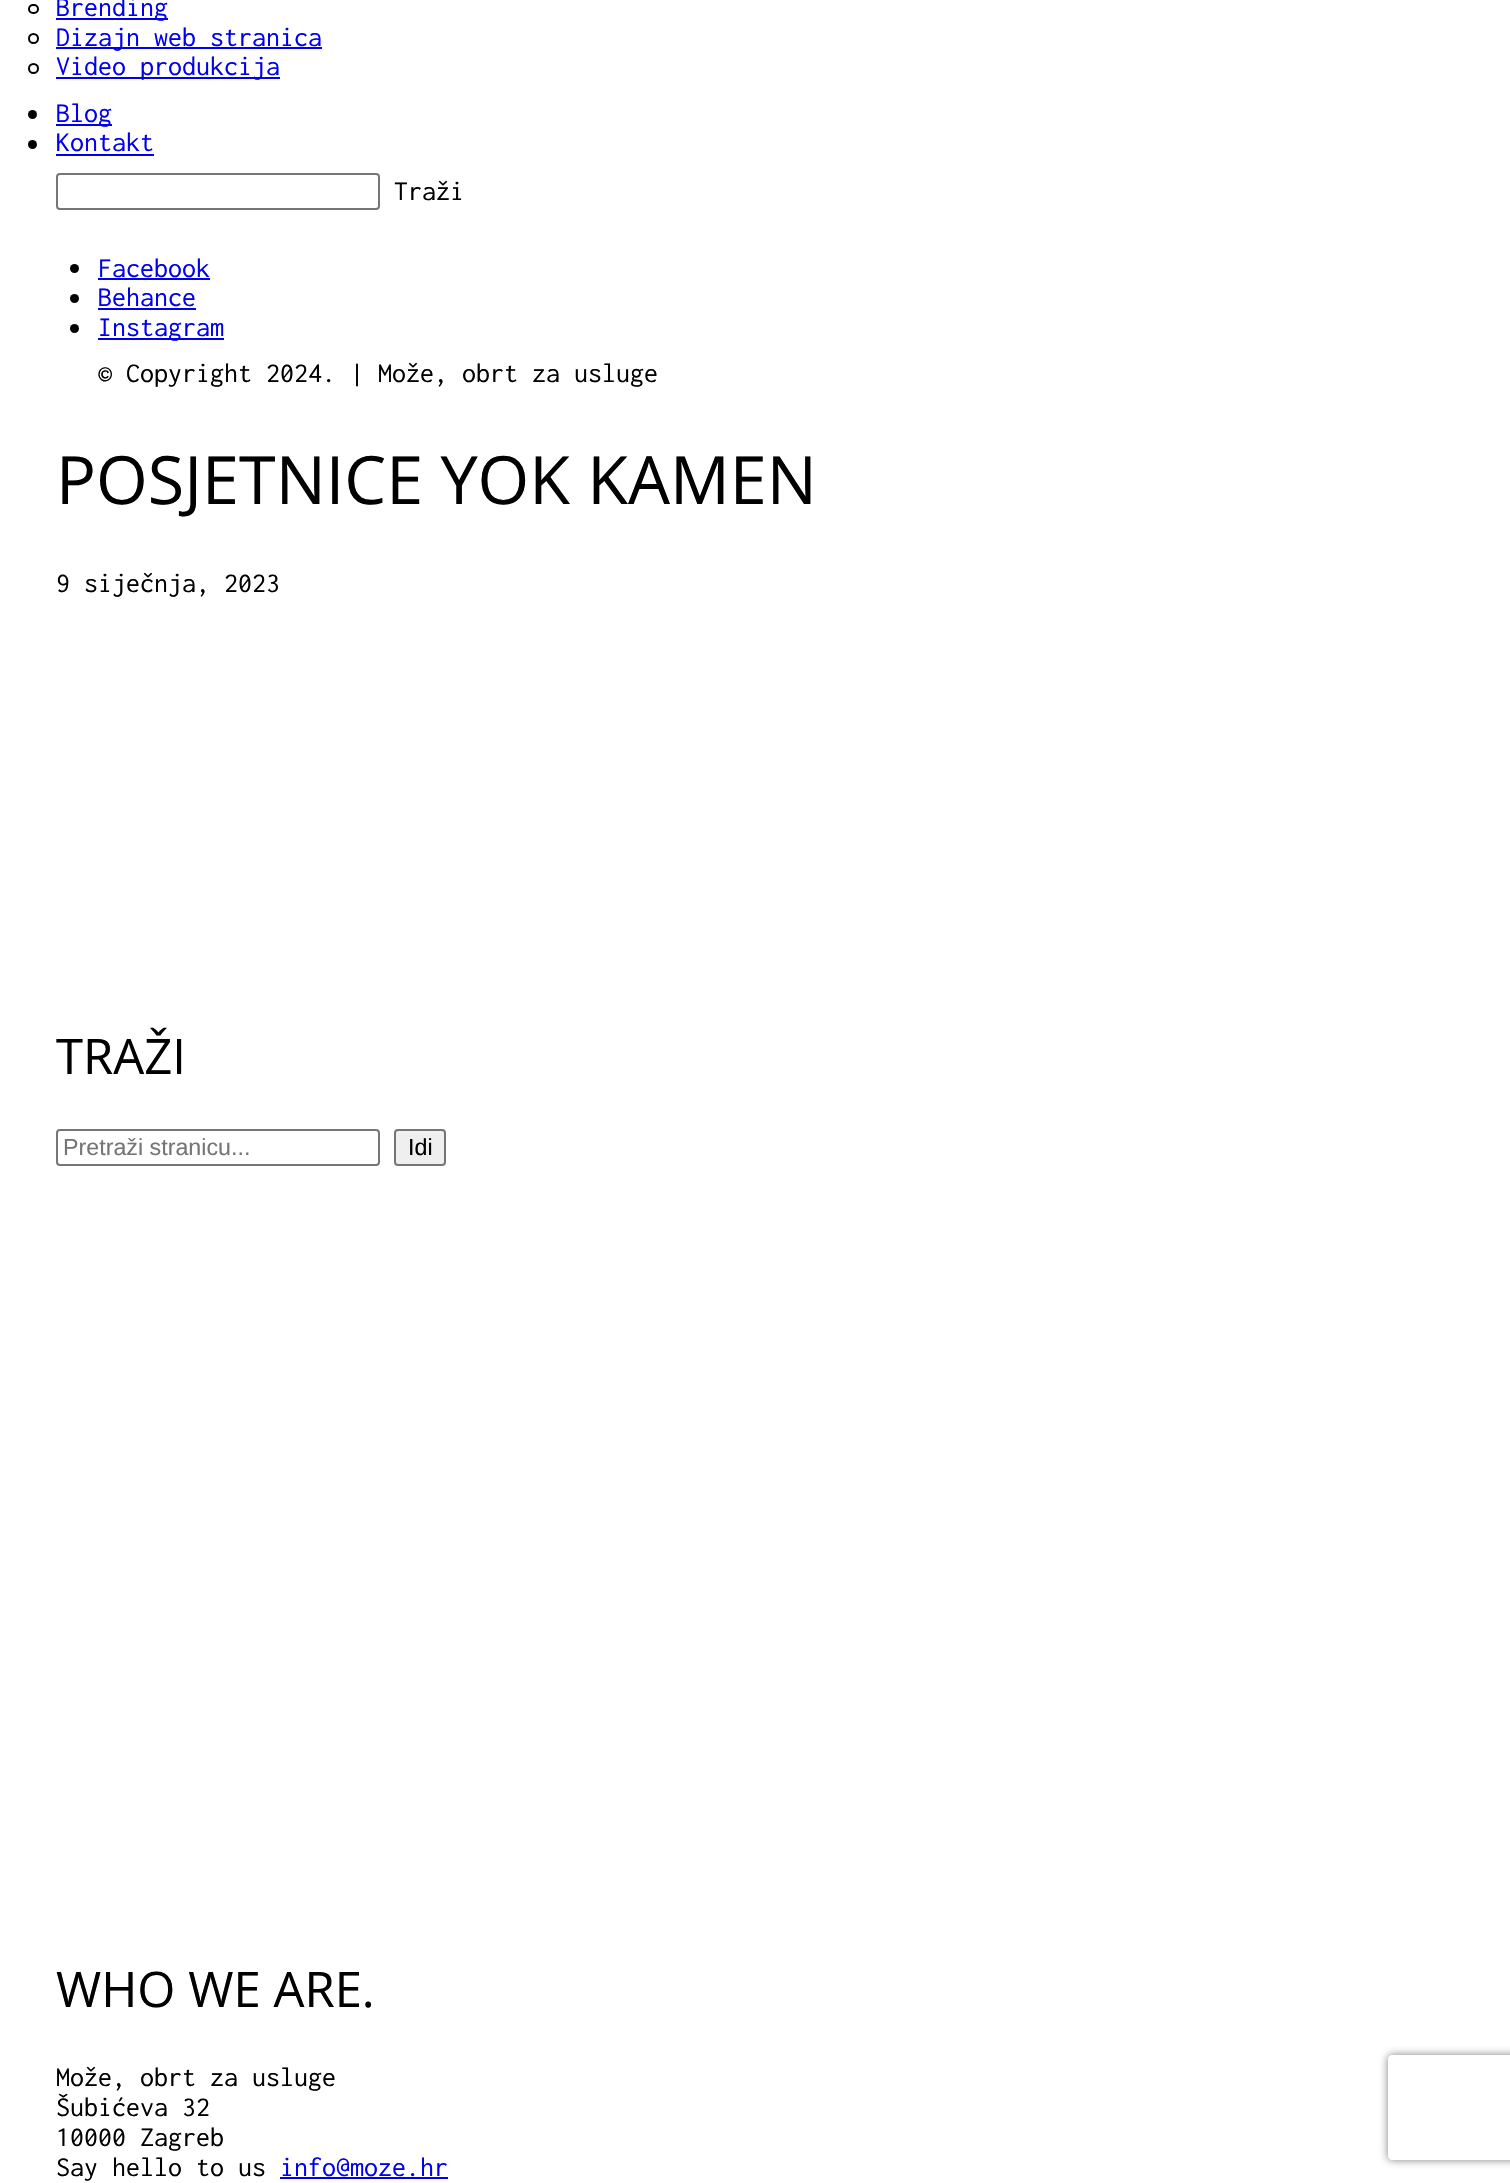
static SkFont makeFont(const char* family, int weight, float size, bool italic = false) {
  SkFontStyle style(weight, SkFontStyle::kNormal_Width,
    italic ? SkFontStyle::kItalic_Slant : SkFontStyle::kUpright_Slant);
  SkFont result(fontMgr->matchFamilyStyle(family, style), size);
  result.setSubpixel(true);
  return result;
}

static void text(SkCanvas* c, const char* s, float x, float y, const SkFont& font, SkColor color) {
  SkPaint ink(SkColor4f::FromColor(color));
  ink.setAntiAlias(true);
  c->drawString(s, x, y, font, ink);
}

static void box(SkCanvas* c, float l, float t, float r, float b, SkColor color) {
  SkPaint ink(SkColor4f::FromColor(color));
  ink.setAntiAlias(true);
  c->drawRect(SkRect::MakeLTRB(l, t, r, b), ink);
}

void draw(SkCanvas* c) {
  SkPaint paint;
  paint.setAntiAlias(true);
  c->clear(0xffffffff);
  paint.setStyle(SkPaint::kStroke_Style);
  paint.setStrokeWidth(2);
  paint.setColor(0xff000000);
  c->drawRoundRect(SkRect::MakeLTRB(29, 5, 38, 13), 4, 4, paint);
  box(c, 56, 18, 168, 20, 0xff0000ee);
  SkFont face1 = makeFont("Inconsolata", 400, 28);
  text(c, "Brending", 56, 16, face1, 0xff0000ee);
  c->drawCircle(33.5f, 38.5f, 4.5f, paint);
  box(c, 56, 47, 322, 49, 0xff0000ee);
  text(c, "Dizajn web stranica", 56, 46, face1, 0xff0000ee);
  c->drawCircle(33.5f, 68.5f, 4.5f, paint);
  box(c, 56, 77, 280, 79, 0xff0000ee);
  text(c, "Video produkcija", 56, 75, face1, 0xff0000ee);
  paint.setStyle(SkPaint::kFill_Style);
  c->drawCircle(32.5f, 114.5f, 4.5f, paint);
  box(c, 56, 124, 112, 126, 0xff0000ee);
  text(c, "Blog", 56, 122, face1, 0xff0000ee);
  c->drawCircle(32.5f, 144.5f, 4.5f, paint);
  text(c, "Kontakt", 56, 151, face1, 0xff0000ee);
  box(c, 56, 154, 154, 156, 0xff0000ee);
  paint.setStyle(SkPaint::kStroke_Style);
  paint.setColor(0xff767676);
  c->drawRoundRect(SkRect::MakeLTRB(57, 174, 379, 209), 3, 3, paint);
  text(c, "Traži", 394, 200, face1, 0xff000000);
  paint.setStyle(SkPaint::kFill_Style);
  paint.setColor(0xff000000);
  c->drawCircle(74.5f, 268.5f, 4.5f, paint);
  text(c, "Facebook", 98, 277, face1, 0xff0000ee);
  box(c, 98, 278, 210, 280, 0xff0000ee);
  c->drawCircle(74.5f, 298.5f, 4.5f, paint);
  text(c, "Behance", 98, 306, face1, 0xff0000ee);
  box(c, 98, 308, 196, 310, 0xff0000ee);
  c->drawCircle(74.5f, 328.5f, 4.5f, paint);
  box(c, 98, 338, 224, 340, 0xff0000ee);
  text(c, "Instagram", 98, 336, face1, 0xff0000ee);
  text(c, "© Copyright 2024. | Može, obrt za usluge", 98, 382, face1, 0xff000000);
  SkFont face2 = makeFont("Open Sans", 400, 66.5f);
  text(c, "POSJETNICE YOK KAMEN", 56, 504, face2, 0xff000000);
  text(c, "9 siječnja, 2023", 56, 592, face1, 0xff000000);
  SkFont face3 = makeFont("Open Sans", 400, 49);
  text(c, "TRAŽI", 56, 1074, face3, 0xff000000);
  paint.setStyle(SkPaint::kStroke_Style);
  paint.setColor(0xff767676);
  c->drawRoundRect(SkRect::MakeLTRB(57, 1130, 379, 1165), 3, 3, paint);
  SkFont face4 = makeFont("Liberation Sans", 400, 23.25f);
  text(c, "Pretraži stranicu...", 63, 1155, face4, 0xff757575);
  paint.setStyle(SkPaint::kFill_Style);
  paint.setColor(0xffefefef);
  c->drawRoundRect(SkRect::MakeLTRB(395, 1130, 445, 1165), 3, 3, paint);
  paint.setStyle(SkPaint::kStroke_Style);
  paint.setColor(0xff767676);
  c->drawRoundRect(SkRect::MakeLTRB(395, 1130, 445, 1165), 3, 3, paint);
  text(c, "Idi", 408, 1155, face4, 0xff000000);
  text(c, "WHO WE ARE.", 56, 2007, face3, 0xff000000);
  text(c, "Može, obrt za usluge", 56, 2086, face1, 0xff000000);
  text(c, "Šubićeva 32", 56, 2116, face1, 0xff000000);
  text(c, "10000 Zagreb", 56, 2146, face1, 0xff000000);
  text(c, "Say hello to us", 56, 2176, face1, 0xff000000);
  text(c, "info@moze.hr", 280, 2176, face1, 0xff0000ee);
  box(c, 280, 2177, 448, 2179, 0xff0000ee);
  c->save();
  c->clipPath(SkPathBuilder(SkPathFillType::kEvenOdd).moveTo(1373, 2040).lineTo(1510, 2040).lineTo(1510, 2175).lineTo(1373, 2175).close().moveTo(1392, 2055).lineTo(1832, 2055).cubicTo(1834, 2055, 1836, 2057, 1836, 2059).lineTo(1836, 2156).cubicTo(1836, 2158, 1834, 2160, 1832, 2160).lineTo(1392, 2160).cubicTo(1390, 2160, 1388, 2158, 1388, 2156).lineTo(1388, 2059).cubicTo(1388, 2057, 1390, 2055, 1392, 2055).close().detach(), true);
  paint.setStyle(SkPaint::kFill_Style);
  paint.setColor(0xff808080);
  paint.setMaskFilter(SkMaskFilter::MakeBlur(kNormal_SkBlurStyle, 4.5f));
  c->drawRoundRect(SkRect::MakeLTRB(1388, 2055, 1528, 2160), 4, 4, paint);
  paint.setMaskFilter(nullptr);
  c->restore();
}
